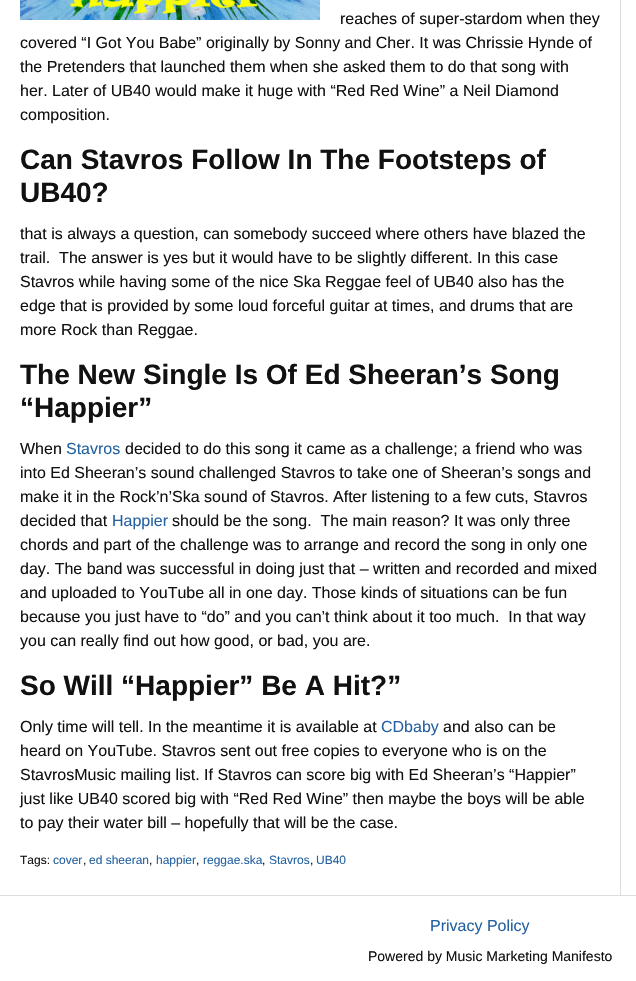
static SkFont makeFont(const char* family, int weight, float size, bool italic = false) {
  SkFontStyle style(weight, SkFontStyle::kNormal_Width,
    italic ? SkFontStyle::kItalic_Slant : SkFontStyle::kUpright_Slant);
  SkFont result(fontMgr->matchFamilyStyle(family, style), size);
  result.setSubpixel(true);
  return result;
}

static void text(SkCanvas* c, const char* s, float x, float y, const SkFont& font, SkColor color) {
  SkPaint ink(SkColor4f::FromColor(color));
  ink.setAntiAlias(true);
  c->drawString(s, x, y, font, ink);
}

static void box(SkCanvas* c, float l, float t, float r, float b, SkColor color) {
  SkPaint ink(SkColor4f::FromColor(color));
  ink.setAntiAlias(true);
  c->drawRect(SkRect::MakeLTRB(l, t, r, b), ink);
}

static void picture(SkCanvas* c, const char* path, float l, float t, float r, float b) {
  auto image = SkImages::DeferredFromEncodedData(SkData::MakeFromFileName(path));
  c->drawImageRect(image, SkRect::MakeLTRB(l, t, r, b), SkSamplingOptions());
}

void draw(SkCanvas* c) {
  SkPaint paint;
  paint.setAntiAlias(true);
  c->clear(0xffffffff);
  box(c, 620, 0, 621, 895, 0xffdddddd);
  picture(c, "img_01.png", 20, 0, 320, 20);
  SkFont face1 = makeFont("Liberation Sans", 400, 16);
  text(c, "reaches of super-stardom when they", 340, 24, face1, 0xff111111);
  text(c, "covered “I Got You Babe” originally by Sonny and Cher. It was Chrissie Hynde of", 20, 48, face1, 0xff111111);
  text(c, "the Pretenders that launched them when she asked them to do that song with", 20, 72, face1, 0xff111111);
  text(c, "her. Later of UB40 would make it huge with “Red Red Wine” a Neil Diamond", 20, 96, face1, 0xff111111);
  text(c, "composition.", 20, 120, face1, 0xff111111);
  SkFont face2 = makeFont("Liberation Sans", 700, 28);
  text(c, "Can Stavros Follow In The Footsteps of", 20, 169, face2, 0xff111111);
  text(c, "UB40?", 20, 202, face2, 0xff111111);
  text(c, "that is always a question, can somebody succeed where others have blazed the", 20, 239, face1, 0xff111111);
  text(c, "trail.  The answer is yes but it would have to be slightly different. In this case", 20, 263, face1, 0xff111111);
  text(c, "Stavros while having some of the nice Ska Reggae feel of UB40 also has the", 20, 287, face1, 0xff111111);
  text(c, "edge that is provided by some loud forceful guitar at times, and drums that are", 20, 311, face1, 0xff111111);
  text(c, "more Rock than Reggae.", 20, 335, face1, 0xff111111);
  text(c, "The New Single Is Of Ed Sheeran’s Song", 20, 384, face2, 0xff111111);
  text(c, "“Happier”", 20, 417, face2, 0xff111111);
  text(c, "When", 20, 454, face1, 0xff111111);
  text(c, "Stavros", 66, 454, face1, 0xff2361a1);
  text(c, "decided to do this song it came as a challenge; a friend who was", 125, 454, face1, 0xff111111);
  text(c, "into Ed Sheeran’s sound challenged Stavros to take one of Sheeran’s songs and", 20, 478, face1, 0xff111111);
  text(c, "make it in the Rock’n’Ska sound of Stavros. After listening to a few cuts, Stavros", 20, 502, face1, 0xff111111);
  text(c, "decided that", 20, 526, face1, 0xff111111);
  text(c, "Happier", 112, 526, face1, 0xff2361a1);
  text(c, "should be the song.  The main reason? It was only three", 172, 526, face1, 0xff111111);
  text(c, "chords and part of the challenge was to arrange and record the song in only one", 20, 550, face1, 0xff111111);
  text(c, "day. The band was successful in doing just that – written and recorded and mixed", 20, 574, face1, 0xff111111);
  text(c, "and uploaded to YouTube all in one day. Those kinds of situations can be fun", 20, 598, face1, 0xff111111);
  text(c, "because you just have to “do” and you can’t think about it too much.  In that way", 20, 622, face1, 0xff111111);
  text(c, "you can really find out how good, or bad, you are.", 20, 646, face1, 0xff111111);
  text(c, "So Will “Happier” Be A Hit?”", 20, 695, face2, 0xff111111);
  text(c, "Only time will tell. In the meantime it is available at", 20, 732, face1, 0xff111111);
  text(c, "CDbaby", 381, 732, face1, 0xff2361a1);
  text(c, "and also can be", 443, 732, face1, 0xff111111);
  text(c, "heard on YouTube. Stavros sent out free copies to everyone who is on the", 20, 756, face1, 0xff111111);
  text(c, "StavrosMusic mailing list. If Stavros can score big with Ed Sheeran’s “Happier”", 20, 780, face1, 0xff111111);
  text(c, "just like UB40 scored big with “Red Red Wine” then maybe the boys will be able", 20, 804, face1, 0xff111111);
  text(c, "to pay their water bill – hopefully that will be the case.", 20, 828, face1, 0xff111111);
  SkFont face3 = makeFont("Liberation Sans", 400, 12);
  text(c, "Tags:", 20, 864, face3, 0xff111111);
  text(c, "cover", 53, 864, face3, 0xff2361a1);
  text(c, ",", 83, 864, face3, 0xff111111);
  text(c, "ed sheeran", 89, 864, face3, 0xff2361a1);
  text(c, ",", 149, 864, face3, 0xff111111);
  text(c, "happier", 156, 864, face3, 0xff2361a1);
  text(c, ",", 196, 864, face3, 0xff111111);
  text(c, "reggae.ska", 203, 864, face3, 0xff2361a1);
  text(c, ",", 262, 864, face3, 0xff111111);
  text(c, "Stavros", 269, 864, face3, 0xff2361a1);
  text(c, ",", 310, 864, face3, 0xff111111);
  text(c, "UB40", 316, 864, face3, 0xff2361a1);
  box(c, 0, 895, 636, 896, 0xffdddddd);
  text(c, "Privacy Policy", 430, 931, face1, 0xff2361a1);
  SkFont face4 = makeFont("Liberation Sans", 400, 14);
  text(c, "Powered by Music Marketing Manifesto", 368, 961, face4, 0xff111111);
}
